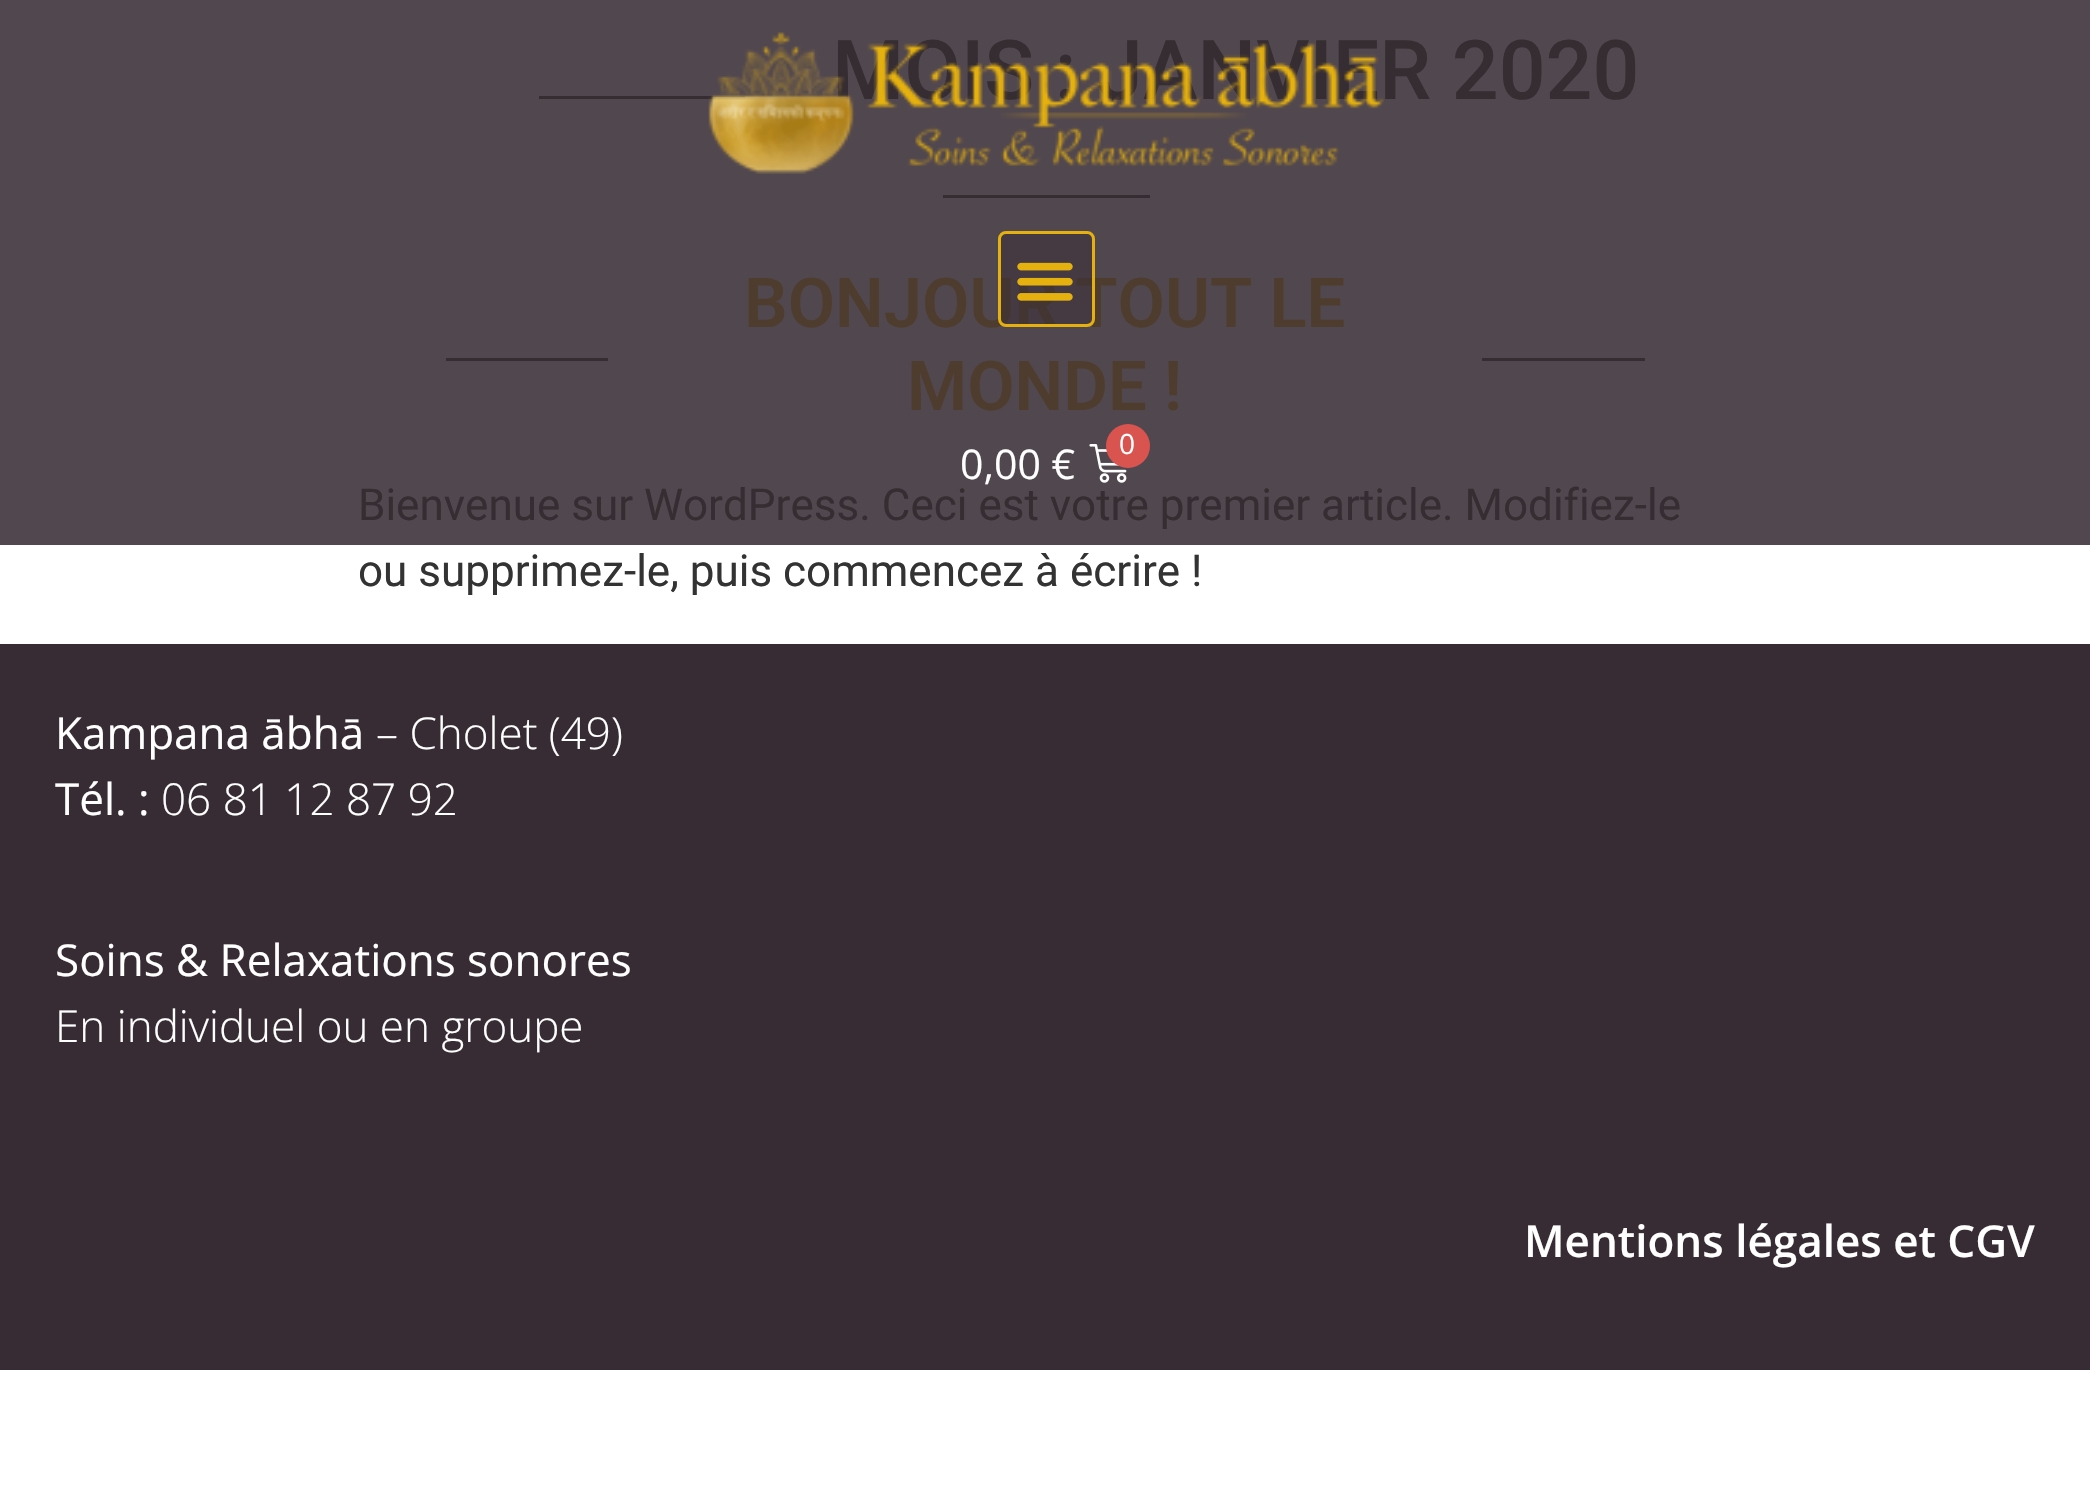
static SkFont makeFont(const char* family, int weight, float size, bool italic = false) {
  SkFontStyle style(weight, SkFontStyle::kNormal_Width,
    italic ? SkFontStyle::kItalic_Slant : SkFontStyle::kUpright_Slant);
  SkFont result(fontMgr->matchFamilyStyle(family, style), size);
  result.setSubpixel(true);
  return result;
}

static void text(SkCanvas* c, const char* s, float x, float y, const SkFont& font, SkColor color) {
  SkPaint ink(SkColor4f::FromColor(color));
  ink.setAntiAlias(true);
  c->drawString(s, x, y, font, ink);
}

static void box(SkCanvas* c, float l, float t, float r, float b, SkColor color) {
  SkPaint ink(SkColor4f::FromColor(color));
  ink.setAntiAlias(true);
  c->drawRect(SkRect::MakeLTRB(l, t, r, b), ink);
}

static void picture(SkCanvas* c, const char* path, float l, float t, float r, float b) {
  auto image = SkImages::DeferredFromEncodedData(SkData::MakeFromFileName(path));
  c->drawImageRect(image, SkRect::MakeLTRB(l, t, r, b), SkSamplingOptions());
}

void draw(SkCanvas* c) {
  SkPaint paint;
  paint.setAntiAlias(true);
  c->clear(0xffffffff);
  box(c, 0, 0, 2090, 545, 0xff51474e);
  box(c, 539, 96, 745, 99, 0xff362d33);
  SkFont face1 = makeFont("Roboto", 500, 82.5f);
  text(c, "MOIS : JANVIER 2020", 832, 99, face1, 0xff362d33);
  box(c, 943, 195, 1150, 198, 0xff362d33);
  box(c, 446, 358, 608, 361, 0xff362d33);
  SkFont face2 = makeFont("Roboto", 600, 68.75f);
  text(c, "BONJOUR TOUT LE", 744, 327, face2, 0xff4e3d2e);
  text(c, "MONDE !", 907, 410, face2, 0xff4e3d2e);
  box(c, 1482, 358, 1645, 361, 0xff362d33);
  SkFont face3 = makeFont("Roboto", 400, 44);
  text(c, "Bienvenue sur WordPress. Ceci est votre premier article. Modifiez-le", 358, 520, face3, 0xff362d33);
  text(c, "ou supprimez-le, puis commencez à écrire !", 358, 586, face3, 0xff333333);
  picture(c, "img_01.png", 708, 32, 1384, 174);
  paint.setColor(0x80372c33);
  c->drawRoundRect(SkRect::MakeLTRB(999.5f, 232.5f, 1093.5f, 325.5f), 6.5f, 6.5f, paint);
  paint.setStyle(SkPaint::kStroke_Style);
  paint.setStrokeWidth(3);
  paint.setColor(0xffe5b10f);
  c->drawRoundRect(SkRect::MakeLTRB(999.5f, 232.5f, 1093.5f, 325.5f), 6.5f, 6.5f, paint);
  picture(c, "img_02.png", 1017, 262, 1073, 301);
  picture(c, "img_03.png", 1089, 444, 1127, 483);
  paint.setStyle(SkPaint::kFill_Style);
  paint.setColor(0xffd9534f);
  c->drawCircle(1128, 446, 22, paint);
  SkFont face4 = makeFont("Open Sans", 400, 28);
  text(c, "0", 1119, 454, face4, 0xffffffff);
  SkFont face5 = makeFont("Open Sans", 400, 41);
  text(c, "0,00 €", 960, 479, face5, 0xffffffff);
  box(c, 0, 644, 2090, 1370, 0xff372c33);
  SkFont face6 = makeFont("Open Sans", 400, 44);
  text(c, "Kampana ābhā", 55, 749, face6, 0xffffffff);
  SkFont face7 = makeFont("Open Sans", 300, 44);
  text(c, "– Cholet (49)", 376, 749, face7, 0xffffffff);
  text(c, "Tél. :", 55, 815, face6, 0xffffffff);
  text(c, "06 81 12 87 92", 161, 815, face7, 0xffffffff);
  text(c, "Soins & Relaxations sonores", 55, 976, face6, 0xffffffff);
  text(c, "En individuel ou en groupe", 55, 1042, face7, 0xffffffff);
  SkFont face8 = makeFont("Open Sans", 600, 44);
  text(c, "Mentions légales et CGV", 1524, 1257, face8, 0xffffffff);
}
